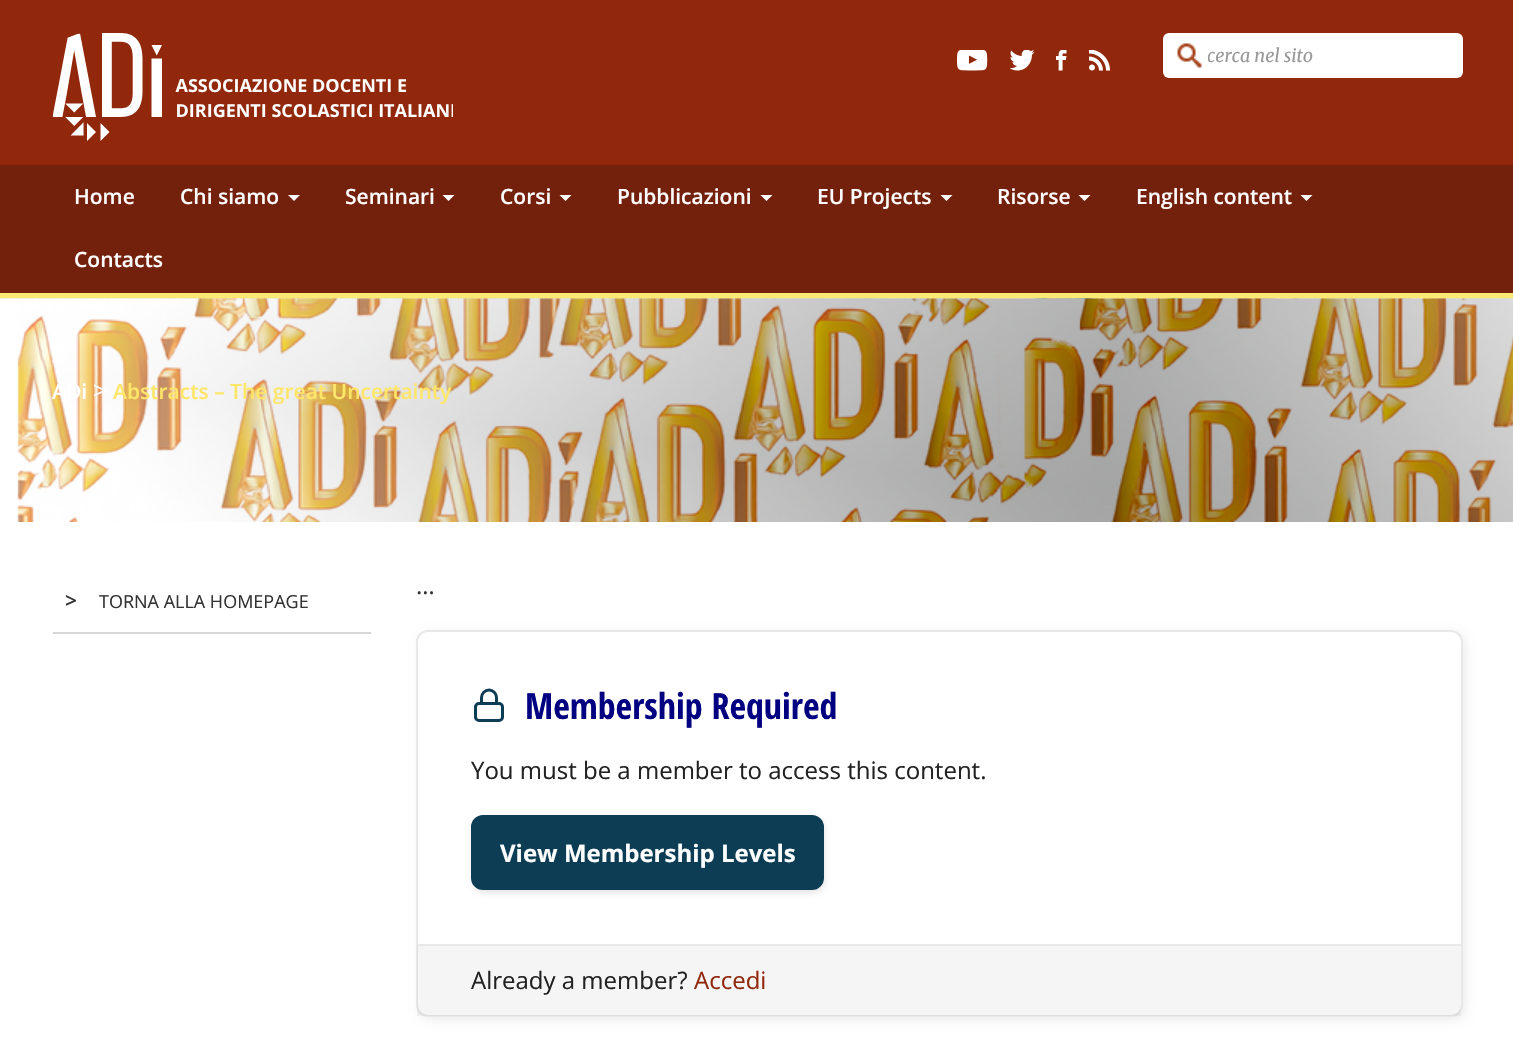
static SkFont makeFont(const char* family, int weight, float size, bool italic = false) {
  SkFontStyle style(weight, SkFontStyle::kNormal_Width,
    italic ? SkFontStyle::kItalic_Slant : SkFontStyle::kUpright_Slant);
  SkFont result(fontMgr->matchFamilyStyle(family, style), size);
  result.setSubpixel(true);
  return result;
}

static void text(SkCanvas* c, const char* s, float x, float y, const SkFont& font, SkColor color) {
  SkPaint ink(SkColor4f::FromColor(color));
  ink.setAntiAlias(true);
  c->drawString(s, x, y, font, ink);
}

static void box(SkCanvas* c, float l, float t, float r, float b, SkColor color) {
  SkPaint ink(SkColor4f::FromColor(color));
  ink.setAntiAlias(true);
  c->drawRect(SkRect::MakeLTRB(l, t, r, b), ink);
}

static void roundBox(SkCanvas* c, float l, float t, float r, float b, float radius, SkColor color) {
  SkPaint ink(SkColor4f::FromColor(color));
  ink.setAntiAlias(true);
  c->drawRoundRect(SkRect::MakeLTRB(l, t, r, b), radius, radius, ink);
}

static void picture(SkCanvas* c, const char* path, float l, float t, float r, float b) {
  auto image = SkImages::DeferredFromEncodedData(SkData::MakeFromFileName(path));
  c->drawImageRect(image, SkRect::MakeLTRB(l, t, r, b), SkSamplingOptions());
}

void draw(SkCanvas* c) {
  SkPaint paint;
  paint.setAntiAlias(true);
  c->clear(0xffffffff);
  box(c, 0, 0, 1513, 165, 0xff91280c);
  picture(c, "img_01.png", 52, 33, 453, 141);
  picture(c, "img_02.png", 957, 50, 988, 71);
  picture(c, "img_03.png", 1010, 50, 1035, 71);
  picture(c, "img_04.png", 1056, 50, 1067, 71);
  picture(c, "img_05.png", 1089, 50, 1110, 71);
  roundBox(c, 1163, 33, 1463, 78, 6, 0xffffffff);
  picture(c, "img_06.png", 1177, 43, 1202, 68);
  c->save();
  c->clipRect(SkRect::MakeLTRB(1208, 45, 1439, 68));
  SkFont face1 = makeFont("Merriweather", 400, 18, true);
  text(c, "cerca nel sito", 1207, 62, face1, 0xff999999);
  c->restore();
  box(c, 0, 165, 1513, 293, 0xff73210d);
  box(c, 0, 293, 1513, 299, 0xfffbe976);
  SkFont face2 = makeFont("Open Sans", 600, 21);
  text(c, "Home", 74, 204, face2, 0xffffffff);
  text(c, "Chi siamo", 180, 204, face2, 0xffffffff);
  paint.setColor(0xffffffff);
  c->drawPath(SkPathBuilder().moveTo(288, 195).lineTo(300, 195).lineTo(294, 201).close().detach(), paint);
  text(c, "Seminari", 345, 204, face2, 0xffffffff);
  c->drawPath(SkPathBuilder().moveTo(442.5f, 195).lineTo(454.5f, 195).lineTo(448.5f, 201).close().detach(), paint);
  text(c, "Corsi", 500, 204, face2, 0xffffffff);
  c->drawPath(SkPathBuilder().moveTo(559.5f, 195).lineTo(571.5f, 195).lineTo(565.5f, 201).close().detach(), paint);
  text(c, "Pubblicazioni", 617, 204, face2, 0xffffffff);
  c->drawPath(SkPathBuilder().moveTo(760.5f, 195).lineTo(772.5f, 195).lineTo(766.5f, 201).close().detach(), paint);
  text(c, "EU Projects", 817, 204, face2, 0xffffffff);
  c->drawPath(SkPathBuilder().moveTo(940.5f, 195).lineTo(952.5f, 195).lineTo(946.5f, 201).close().detach(), paint);
  text(c, "Risorse", 997, 204, face2, 0xffffffff);
  c->drawPath(SkPathBuilder().moveTo(1078.5f, 195).lineTo(1090.5f, 195).lineTo(1084.5f, 201).close().detach(), paint);
  text(c, "English content", 1136, 204, face2, 0xffffffff);
  c->drawPath(SkPathBuilder().moveTo(1300.5f, 195).lineTo(1312.5f, 195).lineTo(1306.5f, 201).close().detach(), paint);
  text(c, "Contacts", 74, 267, face2, 0xffffffff);
  picture(c, "img_07.png", 0, 298, 1513, 299);
  picture(c, "img_08.png", 0, 298, 1513, 522);
  text(c, "ADi", 52, 399, face2, 0xffffffff);
  SkFont face3 = makeFont("Open Sans", 400, 24);
  text(c, ">", 93, 399, face3, 0xffffffff);
  text(c, "Abstracts – The great Uncertainty", 113, 399, face2, 0xfffee66a);
  box(c, 53, 632, 371, 634, 0xffd6d6d6);
  text(c, ">", 65, 608, face2, 0xff333333);
  SkFont face4 = makeFont("Open Sans", 400, 18);
  text(c, "TORNA ALLA HOMEPAGE", 99, 608, face4, 0xff333333);
  text(c, "…", 416, 594, face3, 0xff333333);
  paint.setColor(0x12000000);
  paint.setMaskFilter(SkMaskFilter::MakeBlur(kNormal_SkBlurStyle, 5));
  c->drawRoundRect(SkRect::MakeLTRB(419, 633, 1466, 1020), 12, 12, paint);
  paint.setMaskFilter(nullptr);
  paint.setColor(0xffffffff);
  c->drawRoundRect(SkRect::MakeLTRB(417, 631, 1462, 1016), 11, 11, paint);
  paint.setStyle(SkPaint::kStroke_Style);
  paint.setStrokeWidth(2);
  paint.setColor(0xffe8e8e8);
  c->drawRoundRect(SkRect::MakeLTRB(417, 631, 1462, 1016), 11, 11, paint);
  paint.setStrokeWidth(3);
  paint.setColor(0xff0c3d54);
  c->drawRoundRect(SkRect::MakeLTRB(475.5f, 703.5f, 502.5f, 720.5f), 3.5f, 3.5f, paint);
  paint.setStrokeCap(SkPaint::kRound_Cap);
  paint.setStrokeJoin(SkPaint::kRound_Join);
  c->drawPath(SkPathBuilder().moveTo(481.5f, 703.5f).lineTo(481.5f, 697.5f).cubicTo(481.5f, 693.5f, 485, 690, 489, 690).cubicTo(493, 690, 496.5f, 693.5f, 496.5f, 697.5f).lineTo(496.5f, 703.5f).detach(), paint);
  SkFont face5 = makeFont("Open Sans Condensed", 700, 36);
  text(c, "Membership Required", 525, 719, face5, 0xff000080);
  text(c, "You must be a member to access this content.", 471, 779, face3, 0xff222222);
  paint.setStyle(SkPaint::kFill_Style);
  paint.setColor(0x1a000000);
  paint.setMaskFilter(SkMaskFilter::MakeBlur(kNormal_SkBlurStyle, 3));
  c->drawRoundRect(SkRect::MakeLTRB(473, 818, 825, 893), 12, 12, paint);
  paint.setMaskFilter(nullptr);
  paint.setColor(0xff0c3d54);
  c->drawRoundRect(SkRect::MakeLTRB(472, 816, 823, 889), 11, 11, paint);
  paint.setStyle(SkPaint::kStroke_Style);
  paint.setStrokeWidth(2);
  paint.setStrokeCap(SkPaint::kButt_Cap);
  paint.setStrokeJoin(SkPaint::kMiter_Join);
  c->drawRoundRect(SkRect::MakeLTRB(472, 816, 823, 889), 11, 11, paint);
  SkFont face6 = makeFont("Open Sans", 700, 24);
  text(c, "View Membership Levels", 500, 862, face6, 0xffffffff);
  box(c, 417, 946, 1461, 1016, 0x0a000000);
  box(c, 417, 944, 1461, 946, 0xffe8e8e8);
  text(c, "Already a member?", 471, 989, face3, 0xff222222);
  text(c, "Accedi", 694, 989, face3, 0xff91280c);
}
